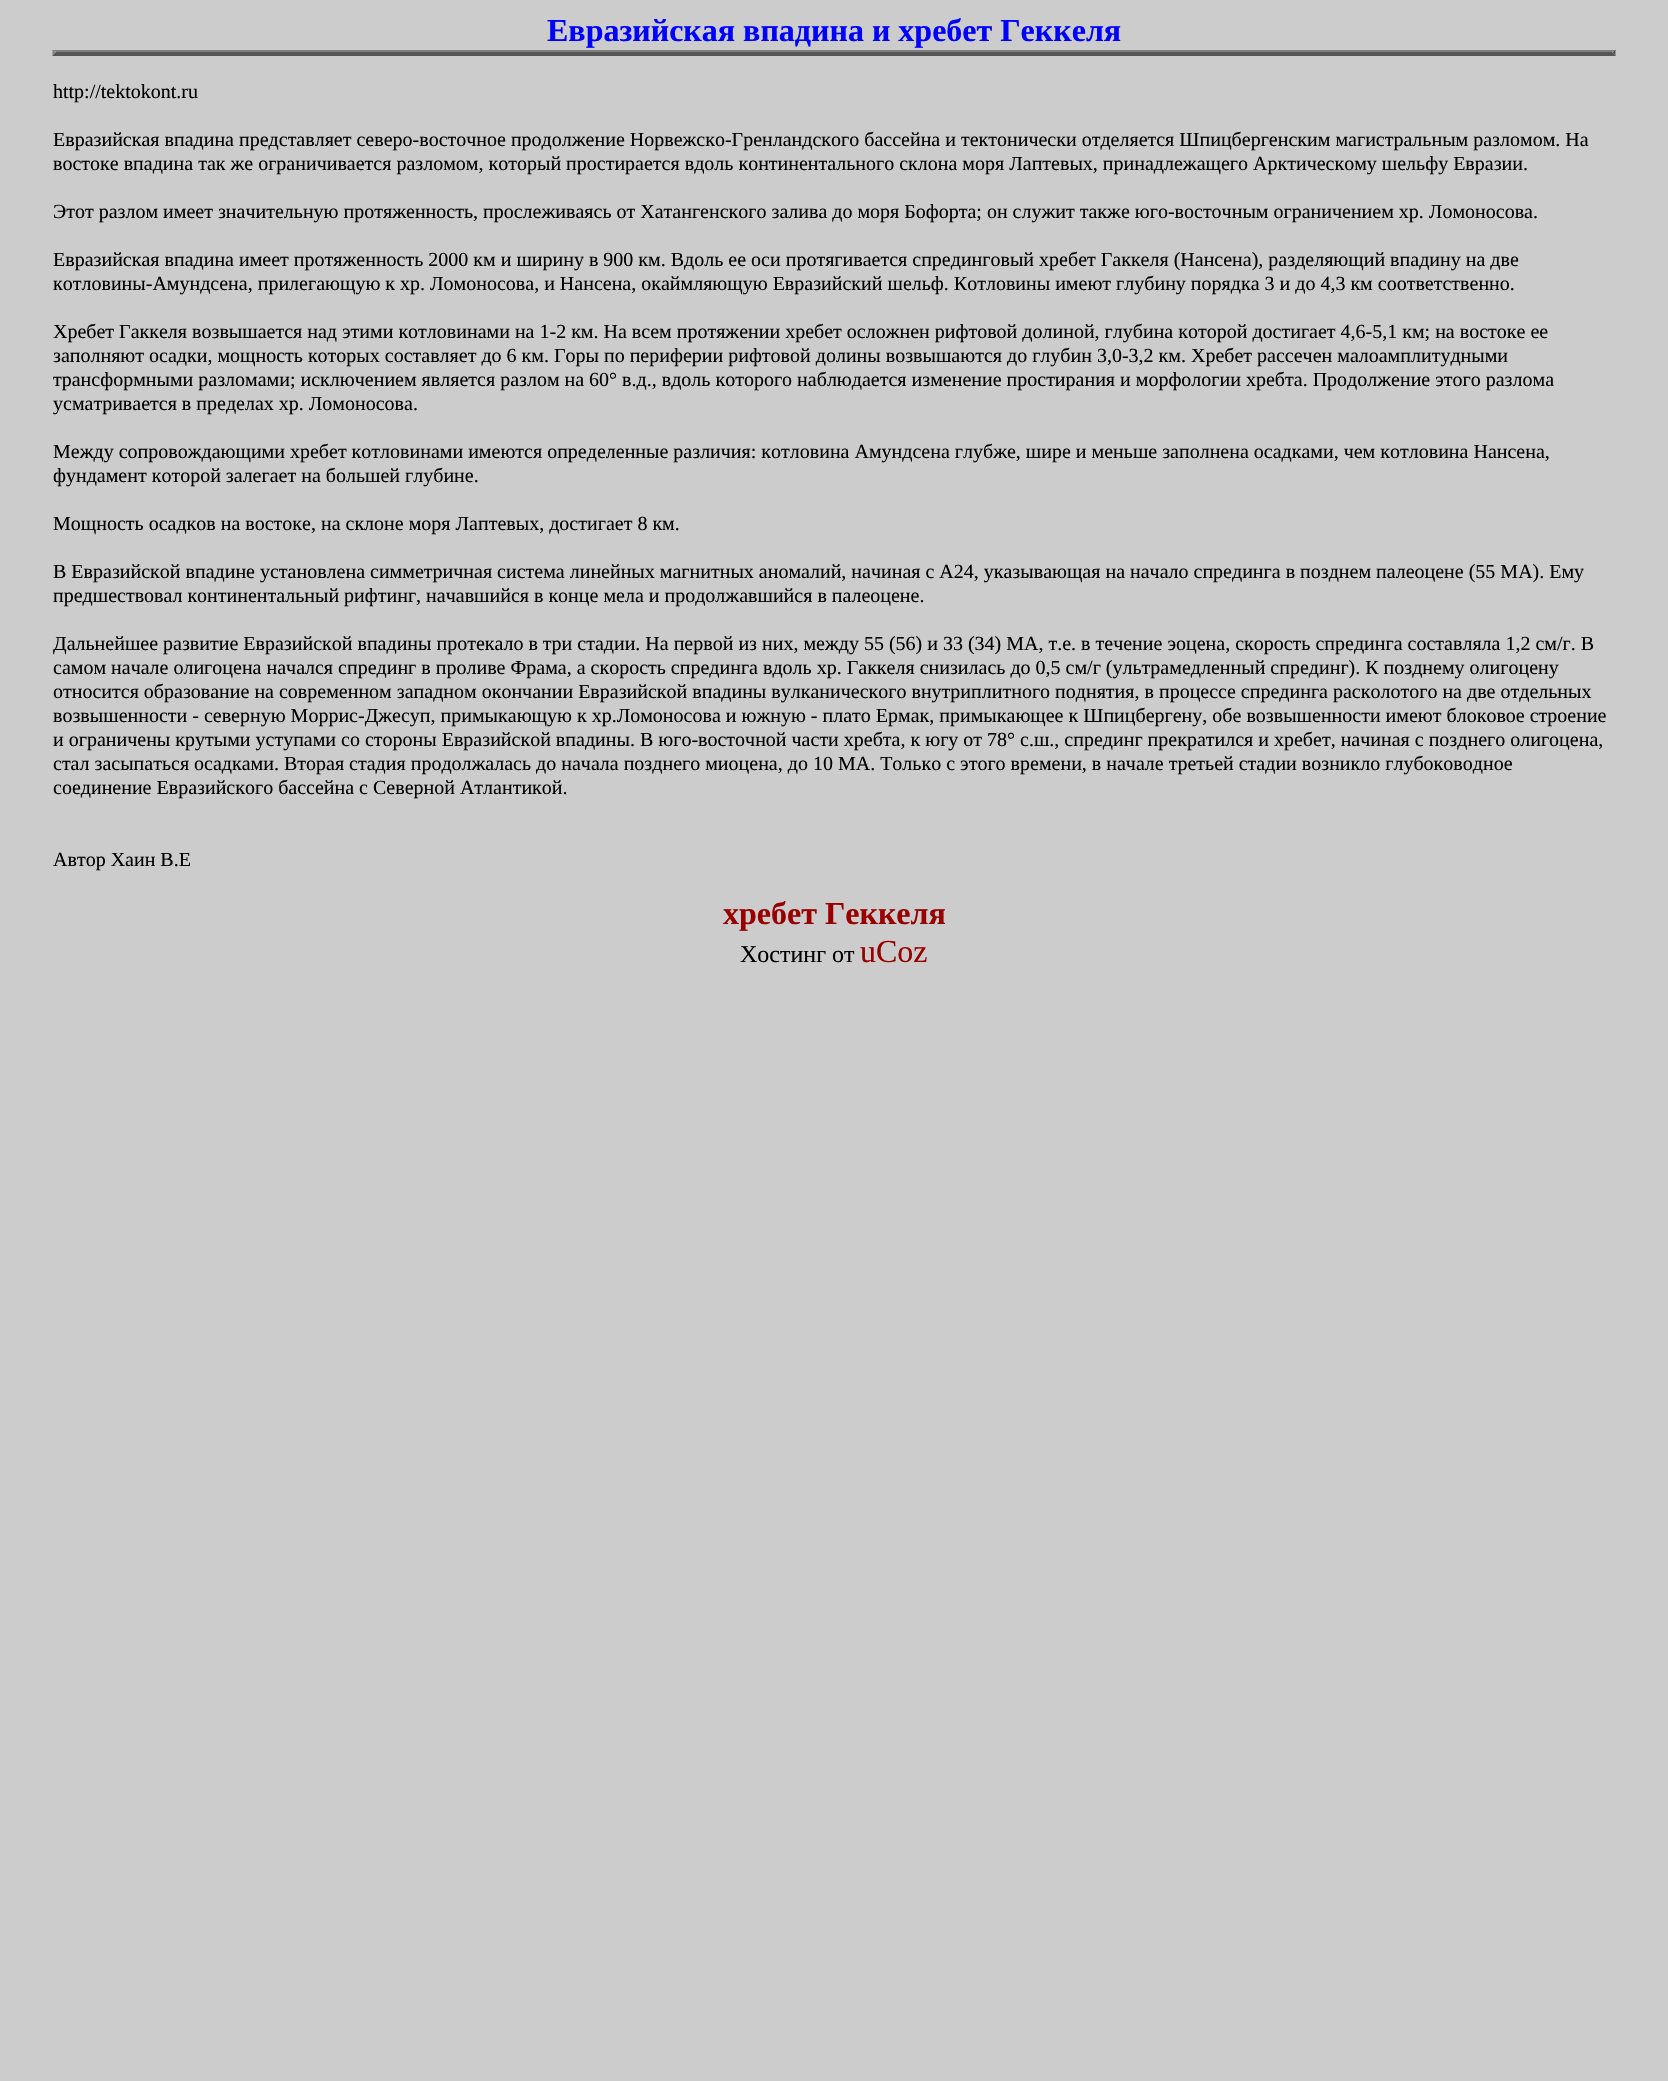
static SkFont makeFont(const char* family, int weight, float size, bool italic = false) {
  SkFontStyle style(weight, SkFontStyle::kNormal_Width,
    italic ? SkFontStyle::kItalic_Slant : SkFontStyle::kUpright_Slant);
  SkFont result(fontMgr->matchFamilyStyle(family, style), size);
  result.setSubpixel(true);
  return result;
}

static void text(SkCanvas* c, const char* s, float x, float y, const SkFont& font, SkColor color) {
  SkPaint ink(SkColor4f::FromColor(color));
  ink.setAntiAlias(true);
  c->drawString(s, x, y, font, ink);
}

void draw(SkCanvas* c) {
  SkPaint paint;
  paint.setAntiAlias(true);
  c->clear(0xffcccccc);
  SkFont face1 = makeFont("Liberation Serif", 700, 32);
  text(c, "Евразийская впадина и хребет Геккеля", 547, 41, face1, 0xff0000ff);
  paint.setColor(0xff808080);
  c->drawPath(SkPathBuilder().moveTo(52, 50).lineTo(1616, 50).lineTo(1612, 52).lineTo(56, 52).close().detach(), paint);
  paint.setColor(0xff555555);
  c->drawPath(SkPathBuilder().moveTo(1615.5f, 49.5f).lineTo(1615.5f, 55.5f).lineTo(1612.5f, 52.5f).close().detach(), paint);
  c->drawPath(SkPathBuilder().moveTo(1616, 56).lineTo(52, 56).lineTo(56, 52).lineTo(1612, 52).close().detach(), paint);
  paint.setColor(0xff808080);
  c->drawPath(SkPathBuilder().moveTo(52.5f, 55.5f).lineTo(52.5f, 49.5f).lineTo(55.5f, 52.5f).close().detach(), paint);
  SkFont face2 = makeFont("Liberation Serif", 400, 20);
  text(c, "http://tektokont.ru", 53, 98, face2, 0xff000000);
  text(c, "Евразийская впадина представляет северо-восточное продолжение Норвежско-Гренландского бассейна и тектонически отделяется Шпицбергенским магистральным разломом. На", 53, 146, face2, 0xff000000);
  text(c, "востоке впадина так же ограничивается разломом, который простирается вдоль континентального склона моря Лаптевых, принадлежащего Арктическому шельфу Евразии.", 53, 170, face2, 0xff000000);
  text(c, "Этот разлом имеет значительную протяженность, проcлеживаясь от Хатангенского залива до моря Бофорта; он служит также юго-восточным ограничением хр. Ломоносова.", 53, 218, face2, 0xff000000);
  text(c, "Евразийская впадина имеет протяженность 2000 км и ширину в 900 км. Вдоль ее оси протягивается спрединговый хребет Гаккеля (Нансена), разделяющий впадину на две", 53, 266, face2, 0xff000000);
  text(c, "котловины-Амундсена, прилегающую к хр. Ломоносова, и Нансена, окаймляющую Евразийский шельф. Котловины имеют глубину порядка 3 и до 4,3 км соответственно.", 53, 290, face2, 0xff000000);
  text(c, "Хребет Гаккеля возвышается над этими котловинами на 1-2 км. На всем протяжении хребет осложнен рифтовой долиной, глубина которой достигает 4,6-5,1 км; на востоке ее", 53, 338, face2, 0xff000000);
  text(c, "заполняют осадки, мощность которых составляет до 6 км. Горы по периферии рифтовой долины возвышаются до глубин 3,0-3,2 км. Хребет рассечен малоамплитудными", 53, 362, face2, 0xff000000);
  text(c, "трансформными разломами; исключением является разлом на 60° в.д., вдоль которого наблюдается изменение простирания и морфологии хребта. Продолжение этого разлома", 53, 386, face2, 0xff000000);
  text(c, "усматривается в пределах хр. Ломоносова.", 53, 410, face2, 0xff000000);
  text(c, "Между сопровождающими хребет котловинами имеются определенные различия: котловина Амундсена глубже, шире и меньше заполнена осадками, чем котловина Нансена,", 53, 458, face2, 0xff000000);
  text(c, "фундамент которой залегает на большей глубине.", 53, 482, face2, 0xff000000);
  text(c, "Мощность осадков на востоке, на склоне моря Лаптевых, достигает 8 км.", 53, 530, face2, 0xff000000);
  text(c, "В Евразийской впадине установлена симметричная система линейных магнитных аномалий, начиная с А24, указывающая на начало спрединга в позднем палеоцене (55 МА). Ему", 53, 578, face2, 0xff000000);
  text(c, "предшествовал континентальный рифтинг, начавшийся в конце мела и продолжавшийся в палеоцене.", 53, 602, face2, 0xff000000);
  text(c, "Дальнейшее развитие Евразийской впадины протекало в три стадии. На первой из них, между 55 (56) и 33 (34) МА, т.е. в течение эоцена, скорость спрединга составляла 1,2 см/г. В", 53, 650, face2, 0xff000000);
  text(c, "самом начале олигоцена начался спрединг в проливе Фрама, а скорость спрединга вдоль хр. Гаккеля снизилась до 0,5 см/г (ультрамедленный спрединг). К позднему олигоцену", 53, 674, face2, 0xff000000);
  text(c, "относится образование на современном западном окончании Евразийской впадины вулканического внутриплитного поднятия, в процессе спрединга расколотого на две отдельных", 53, 698, face2, 0xff000000);
  text(c, "возвышенности - северную Моррис-Джесуп, примыкающую к хр.Ломоносова и южную - плато Ермак, примыкающее к Шпицбергену, обе возвышенности имеют блоковое строение", 53, 722, face2, 0xff000000);
  text(c, "и ограничены крутыми уступами со стороны Евразийской впадины. В юго-восточной части хребта, к югу от 78° с.ш., спрединг прекратился и хребет, начиная с позднего олигоцена,", 53, 746, face2, 0xff000000);
  text(c, "стал засыпаться осадками. Вторая стадия продолжалась до начала позднего миоцена, до 10 МА. Только с этого времени, в начале третьей стадии возникло глубоководное", 53, 770, face2, 0xff000000);
  text(c, "соединение Евразийского бассейна с Северной Атлантикой.", 53, 794, face2, 0xff000000);
  text(c, "Автор Хаин В.Е", 53, 866, face2, 0xff000000);
  text(c, "хребет Геккеля", 723, 924, face1, 0xff990000);
  SkFont face3 = makeFont("Liberation Serif", 400, 24);
  text(c, "Хостинг от", 740, 962, face3, 0xff000000);
  SkFont face4 = makeFont("Liberation Serif", 400, 32);
  text(c, "uCoz", 860, 962, face4, 0xff990000);
}
